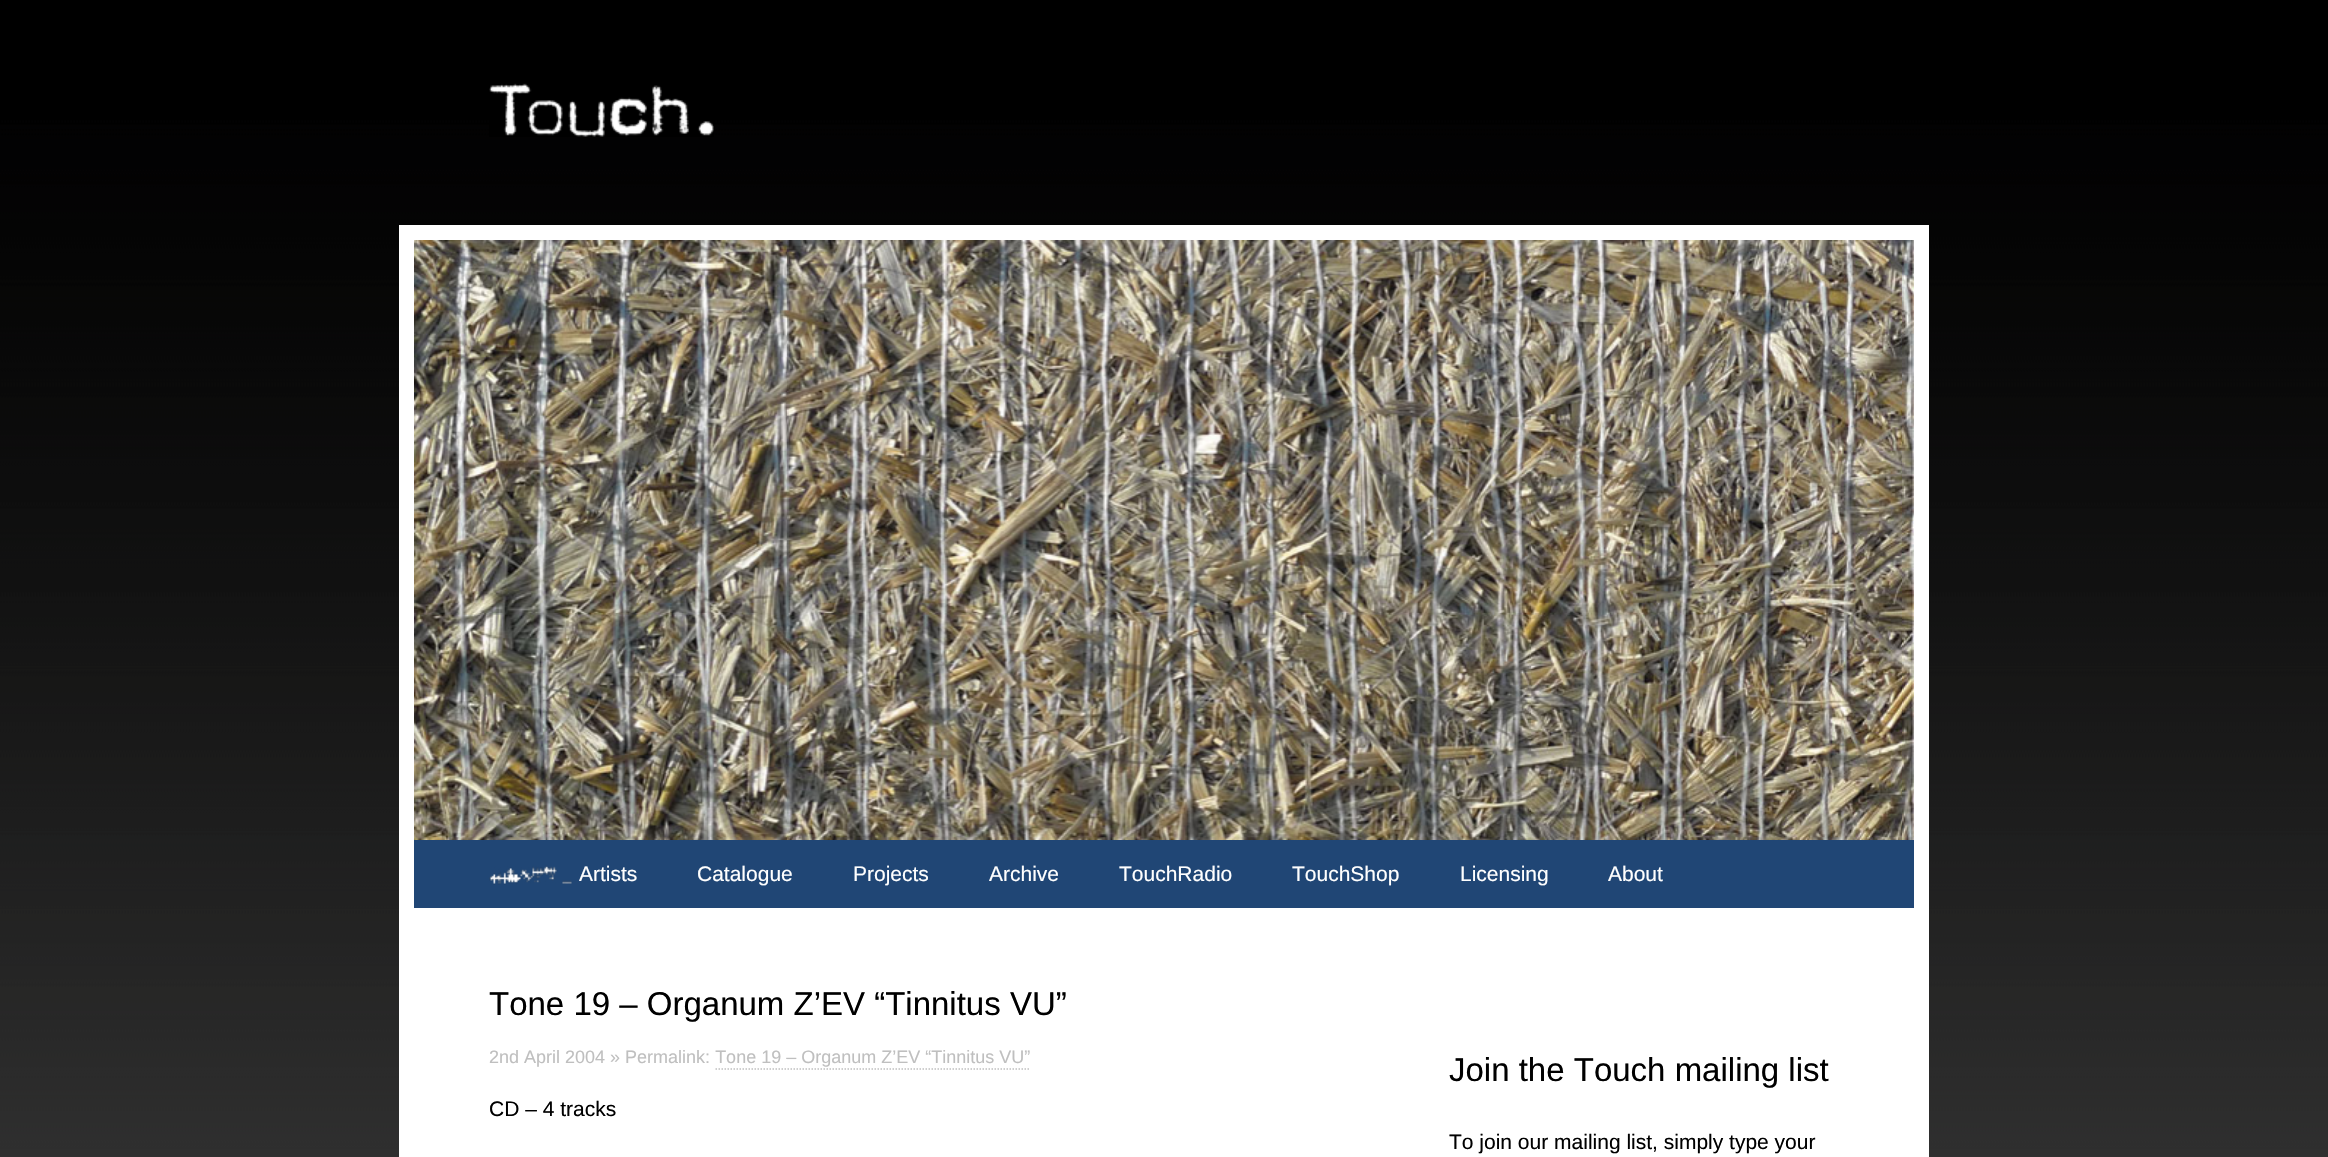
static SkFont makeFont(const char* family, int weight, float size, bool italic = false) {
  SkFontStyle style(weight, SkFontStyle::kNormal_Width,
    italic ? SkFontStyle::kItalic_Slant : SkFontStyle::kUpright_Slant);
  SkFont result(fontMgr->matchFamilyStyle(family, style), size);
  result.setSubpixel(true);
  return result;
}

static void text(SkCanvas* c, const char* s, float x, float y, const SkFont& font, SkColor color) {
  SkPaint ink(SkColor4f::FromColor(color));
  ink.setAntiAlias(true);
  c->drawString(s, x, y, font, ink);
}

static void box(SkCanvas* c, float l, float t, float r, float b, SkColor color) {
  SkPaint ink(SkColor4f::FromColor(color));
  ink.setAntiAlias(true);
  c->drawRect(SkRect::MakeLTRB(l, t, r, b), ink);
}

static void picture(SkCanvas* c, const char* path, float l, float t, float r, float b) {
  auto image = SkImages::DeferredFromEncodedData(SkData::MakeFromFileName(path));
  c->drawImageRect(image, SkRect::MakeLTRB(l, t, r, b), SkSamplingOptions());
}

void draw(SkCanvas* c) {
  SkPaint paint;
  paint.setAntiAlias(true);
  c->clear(0xffffffff);
  picture(c, "img_01.png", 0, 0, 2328, 1157);
  picture(c, "img_02.png", 489, 83, 714, 137);
  box(c, 399, 225, 1929, 1157, 0xffffffff);
  picture(c, "img_03.png", 414, 240, 1914, 840);
  box(c, 414, 840, 1914, 908, 0xff204675);
  picture(c, "img_04.png", 489, 865, 572, 885);
  SkFont face1 = makeFont("Liberation Sans", 400, 21);
  text(c, "Artists", 579, 881, face1, 0xffffffff);
  text(c, "Catalogue", 697, 881, face1, 0xffffffff);
  text(c, "Projects", 853, 881, face1, 0xffffffff);
  text(c, "Archive", 989, 881, face1, 0xffffffff);
  text(c, "TouchRadio", 1119, 881, face1, 0xffffffff);
  text(c, "TouchShop", 1292, 881, face1, 0xffffffff);
  text(c, "Licensing", 1460, 881, face1, 0xffffffff);
  text(c, "About", 1608, 881, face1, 0xffffffff);
  SkFont face2 = makeFont("Liberation Sans", 400, 33);
  text(c, "Tone 19 – Organum Z’EV “Tinnitus VU”", 489, 1015, face2, 0xff000000);
  SkFont face3 = makeFont("Liberation Sans", 400, 18);
  text(c, "2nd April 2004 » Permalink: Tone 19 – Organum Z’EV “Tinnitus VU”", 489, 1063, face3, 0xffbfbfbf);
  paint.setStyle(SkPaint::kStroke_Style);
  paint.setStrokeWidth(1.5f);
  paint.setColor(0xffbfbfbf);
  paint.setPathEffect(SkDashPathEffect::Make({{1.5f, 1.5f}}, 0));
  c->drawPath(SkPathBuilder().moveTo(715.5f, 1069).lineTo(1030.5f, 1069).detach(), paint);
  paint.setPathEffect(nullptr);
  text(c, "CD – 4 tracks", 489, 1116, face1, 0xff000000);
  text(c, "Join the Touch mailing list", 1449, 1081, face2, 0xff000000);
  text(c, "To join our mailing list, simply type your", 1449, 1149, face1, 0xff000000);
}
